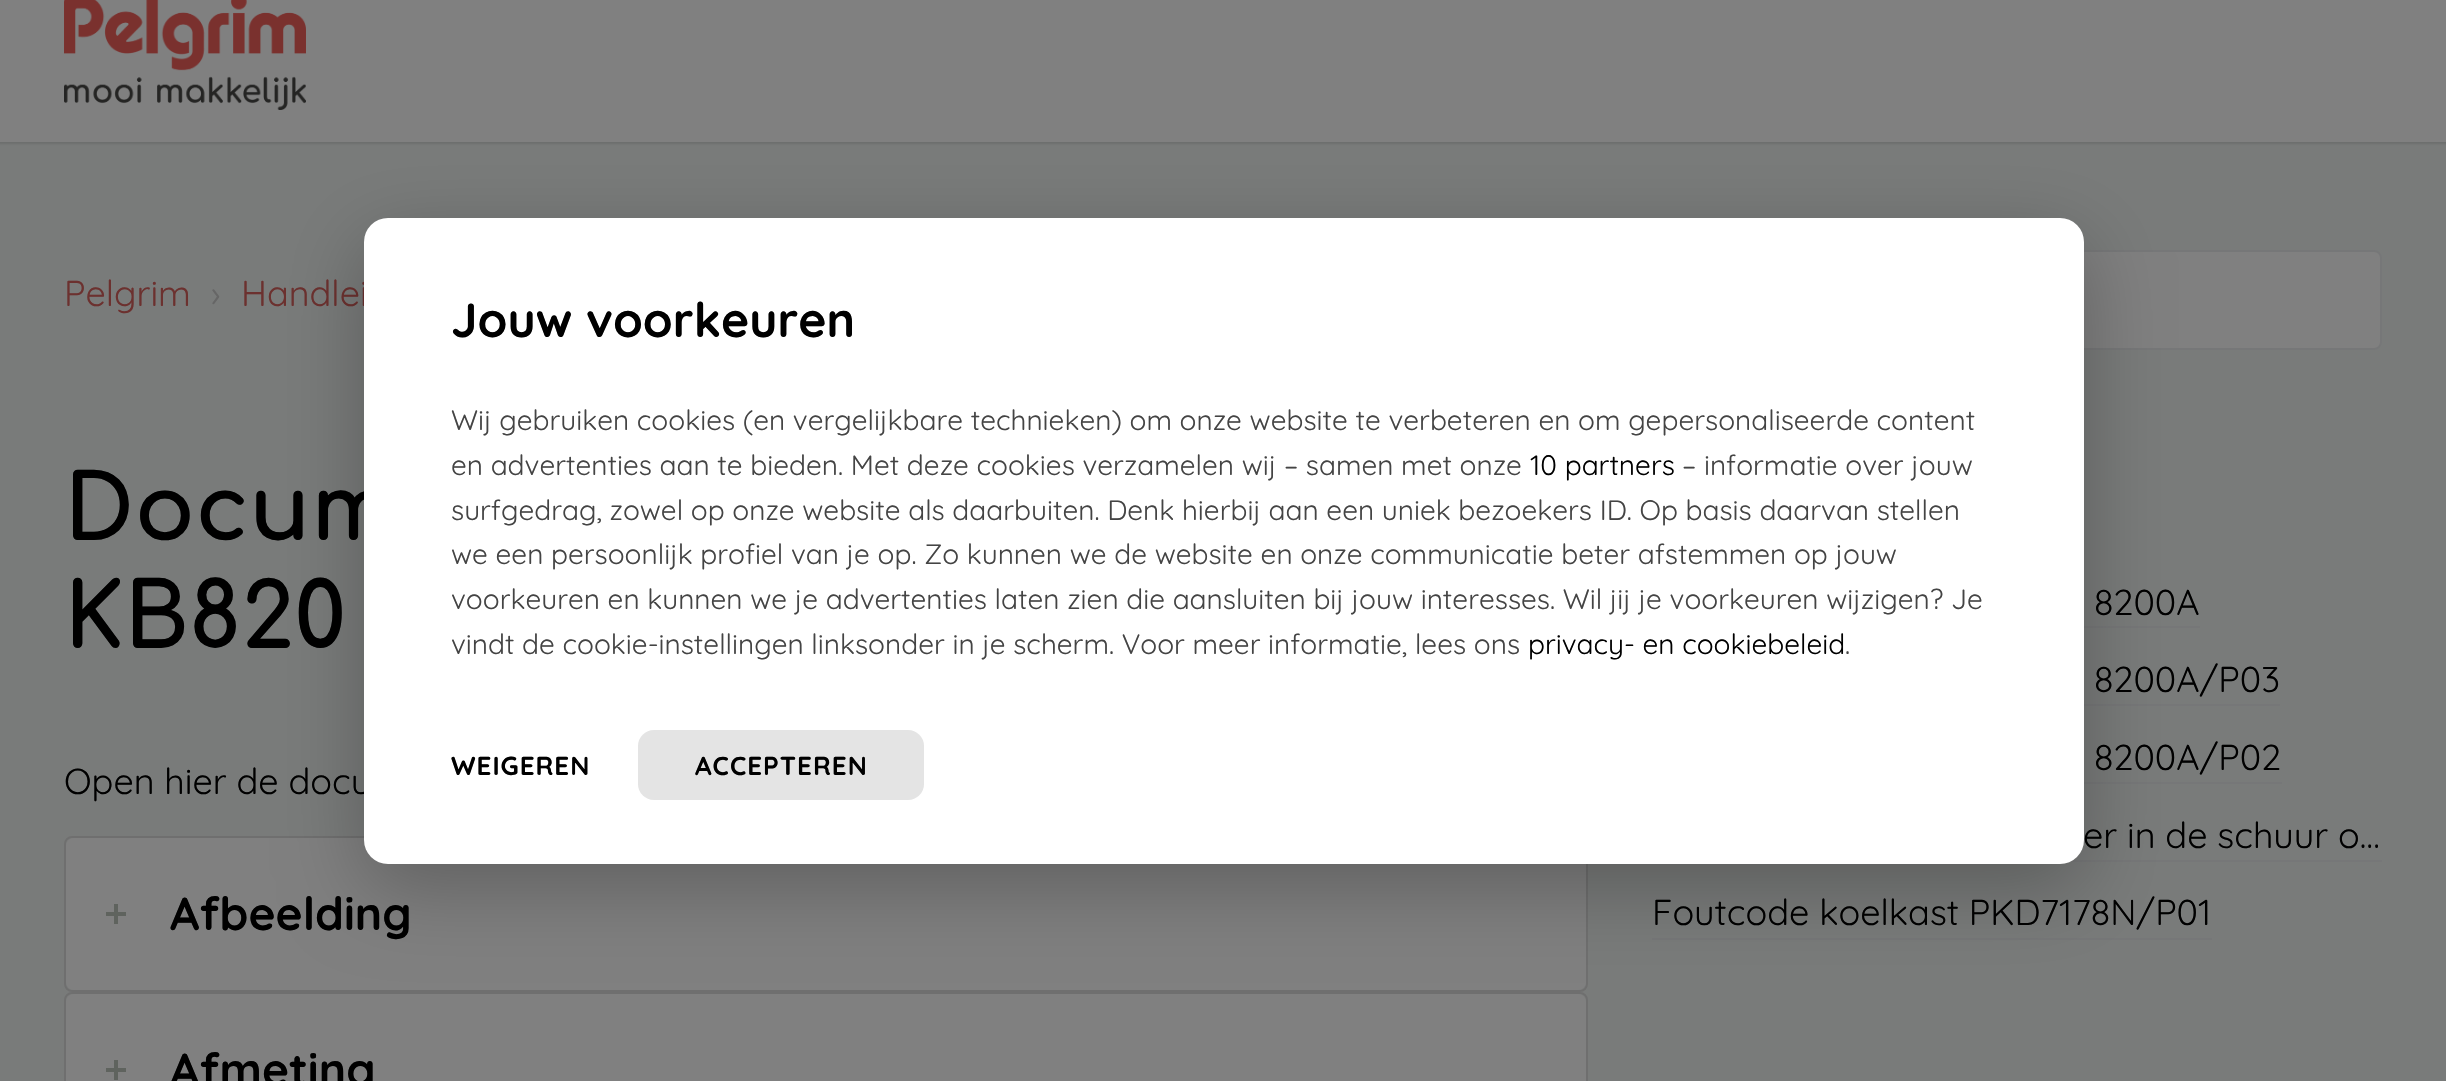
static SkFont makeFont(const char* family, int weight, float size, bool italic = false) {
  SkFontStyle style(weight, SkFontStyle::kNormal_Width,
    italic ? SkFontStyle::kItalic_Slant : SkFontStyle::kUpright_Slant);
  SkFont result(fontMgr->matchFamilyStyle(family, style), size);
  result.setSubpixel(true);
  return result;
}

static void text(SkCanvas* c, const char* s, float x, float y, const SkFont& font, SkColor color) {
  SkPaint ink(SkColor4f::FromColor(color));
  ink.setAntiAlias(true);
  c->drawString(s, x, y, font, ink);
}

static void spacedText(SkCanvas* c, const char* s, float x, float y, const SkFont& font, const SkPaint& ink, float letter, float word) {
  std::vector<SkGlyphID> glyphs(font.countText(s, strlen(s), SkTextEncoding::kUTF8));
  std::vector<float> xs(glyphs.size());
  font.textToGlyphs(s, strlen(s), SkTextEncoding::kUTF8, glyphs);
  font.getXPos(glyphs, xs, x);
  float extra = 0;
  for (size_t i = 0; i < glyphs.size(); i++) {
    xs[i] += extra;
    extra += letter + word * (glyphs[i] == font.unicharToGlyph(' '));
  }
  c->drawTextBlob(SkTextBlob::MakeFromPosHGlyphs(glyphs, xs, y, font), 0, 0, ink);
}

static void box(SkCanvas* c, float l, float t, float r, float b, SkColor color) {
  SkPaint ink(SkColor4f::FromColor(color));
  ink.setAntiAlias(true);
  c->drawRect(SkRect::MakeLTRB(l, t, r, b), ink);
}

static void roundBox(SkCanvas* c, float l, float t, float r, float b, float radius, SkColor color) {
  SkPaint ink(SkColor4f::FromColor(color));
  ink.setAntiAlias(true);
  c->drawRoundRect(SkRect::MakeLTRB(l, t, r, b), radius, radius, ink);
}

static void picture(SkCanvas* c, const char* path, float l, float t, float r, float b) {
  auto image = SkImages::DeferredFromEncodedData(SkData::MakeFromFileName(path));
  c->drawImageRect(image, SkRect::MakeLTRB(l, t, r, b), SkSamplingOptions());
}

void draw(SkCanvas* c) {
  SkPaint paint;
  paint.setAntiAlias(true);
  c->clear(0xff797b7a);
  paint.setColor(0x1a000000);
  paint.setMaskFilter(SkMaskFilter::MakeBlur(kNormal_SkBlurStyle, 1));
  c->drawRect(SkRect::MakeLTRB(-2, -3, 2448, 144), paint);
  paint.setMaskFilter(nullptr);
  box(c, 0, 0, 2446, 142, 0xff808080);
  picture(c, "img_01.png", 64, 0, 306, 110);
  SkFont face1 = makeFont("Quicksand", 400, 36);
  text(c, "Pelgrim", 64, 306, face1, 0xff6c312f);
  text(c, "›", 211, 306, face1, 0xff666666);
  text(c, "Handlei", 241, 306, face1, 0xff6c312f);
  paint.setColor(0xff808080);
  c->drawRoundRect(SkRect::MakeLTRB(1653, 251, 2381, 349), 7, 7, paint);
  paint.setStyle(SkPaint::kStroke_Style);
  paint.setStrokeWidth(2);
  paint.setColor(0xff767778);
  c->drawRoundRect(SkRect::MakeLTRB(1653, 251, 2381, 349), 7, 7, paint);
  SkFont face2 = makeFont("Comfortaa", 700, 90);
  text(c, "Docum", 64, 540, face2, 0xff000000);
  text(c, "KB820", 64, 648, face2, 0xff000000);
  text(c, "Open hier de docu", 64, 794, face1, 0xff000000);
  paint.setColor(0xff6f6f6f);
  c->drawRoundRect(SkRect::MakeLTRB(65, 837, 1587, 991), 7, 7, paint);
  roundBox(c, 66, 838, 1586, 990, 8, 0xff808080);
  box(c, 106, 912, 126, 916, 0xff5f635e);
  box(c, 114, 904, 118, 924, 0xff5f635e);
  SkFont face3 = makeFont("Quicksand", 700, 46);
  text(c, "Afbeelding", 170, 930, face3, 0xff000000);
  c->drawRoundRect(SkRect::MakeLTRB(65, 993, 1587, 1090), 7, 7, paint);
  roundBox(c, 66, 994, 1586, 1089, 8, 0xff808080);
  box(c, 106, 1068, 126, 1072, 0xff5f635e);
  box(c, 114, 1060, 118, 1080, 0xff5f635e);
  text(c, "Afmeting", 170, 1086, face3, 0xff000000);
  text(c, "8200A", 2094, 615, face1, 0xff000000);
  box(c, 2084, 626, 2200, 628, 0xff767778);
  text(c, "8200A/P03", 2094, 692, face1, 0xff000000);
  box(c, 2084, 704, 2280, 706, 0xff767778);
  text(c, "8200A/P02", 2094, 770, face1, 0xff000000);
  box(c, 2084, 782, 2282, 784, 0xff767778);
  text(c, "er in de schuur o…", 2083, 848, face1, 0xff000000);
  box(c, 2069, 860, 2382, 862, 0xff767778);
  text(c, "Foutcode koelkast PKD7178N/P01", 1652, 925, face1, 0xff000000);
  box(c, 1652, 938, 2212, 940, 0xff767778);
  paint.setStyle(SkPaint::kFill_Style);
  paint.setColor(0x40000000);
  paint.setMaskFilter(SkMaskFilter::MakeBlur(kNormal_SkBlurStyle, 40));
  c->drawRoundRect(SkRect::MakeLTRB(364, 242, 2084, 888), 24, 24, paint);
  paint.setMaskFilter(nullptr);
  roundBox(c, 364, 218, 2084, 864, 24, 0xffffffff);
  SkFont face4 = makeFont("Quicksand", 700, 48);
  text(c, "Jouw voorkeuren", 451, 337, face4, 0xff000000);
  SkFont face5 = makeFont("Quicksand", 400, 28);
  text(c, "Wij gebruiken cookies (en vergelijkbare technieken) om onze website te verbeteren en om gepersonaliseerde content", 451, 430, face5, 0xff444444);
  text(c, "en advertenties aan te bieden. Met deze cookies verzamelen wij – samen met onze", 451, 475, face5, 0xff444444);
  text(c, "10 partners", 1530, 475, face5, 0xff000000);
  text(c, "– informatie over jouw", 1682, 475, face5, 0xff444444);
  text(c, "surfgedrag, zowel op onze website als daarbuiten. Denk hierbij aan een uniek bezoekers ID. Op basis daarvan stellen", 451, 520, face5, 0xff444444);
  text(c, "we een persoonlijk profiel van je op. Zo kunnen we de website en onze communicatie beter afstemmen op jouw", 451, 564, face5, 0xff444444);
  text(c, "voorkeuren en kunnen we je advertenties laten zien die aansluiten bij jouw interesses. Wil jij je voorkeuren wijzigen? Je", 451, 609, face5, 0xff444444);
  text(c, "vindt de cookie-instellingen linksonder in je scherm. Voor meer informatie, lees ons", 451, 654, face5, 0xff444444);
  text(c, "privacy- en cookiebeleid", 1528, 654, face5, 0xff000000);
  text(c, ".", 1845, 654, face5, 0xff444444);
  SkFont face6 = makeFont("Quicksand", 700, 26);
  paint.setColor(0xff000000);
  spacedText(c, "WEIGEREN", 451, 775, face6, paint, 1, 0);
  roundBox(c, 638, 730, 924, 800, 16, 0xffe4e4e4);
  spacedText(c, "ACCEPTEREN", 695, 775, face6, paint, 1, 0);
}
